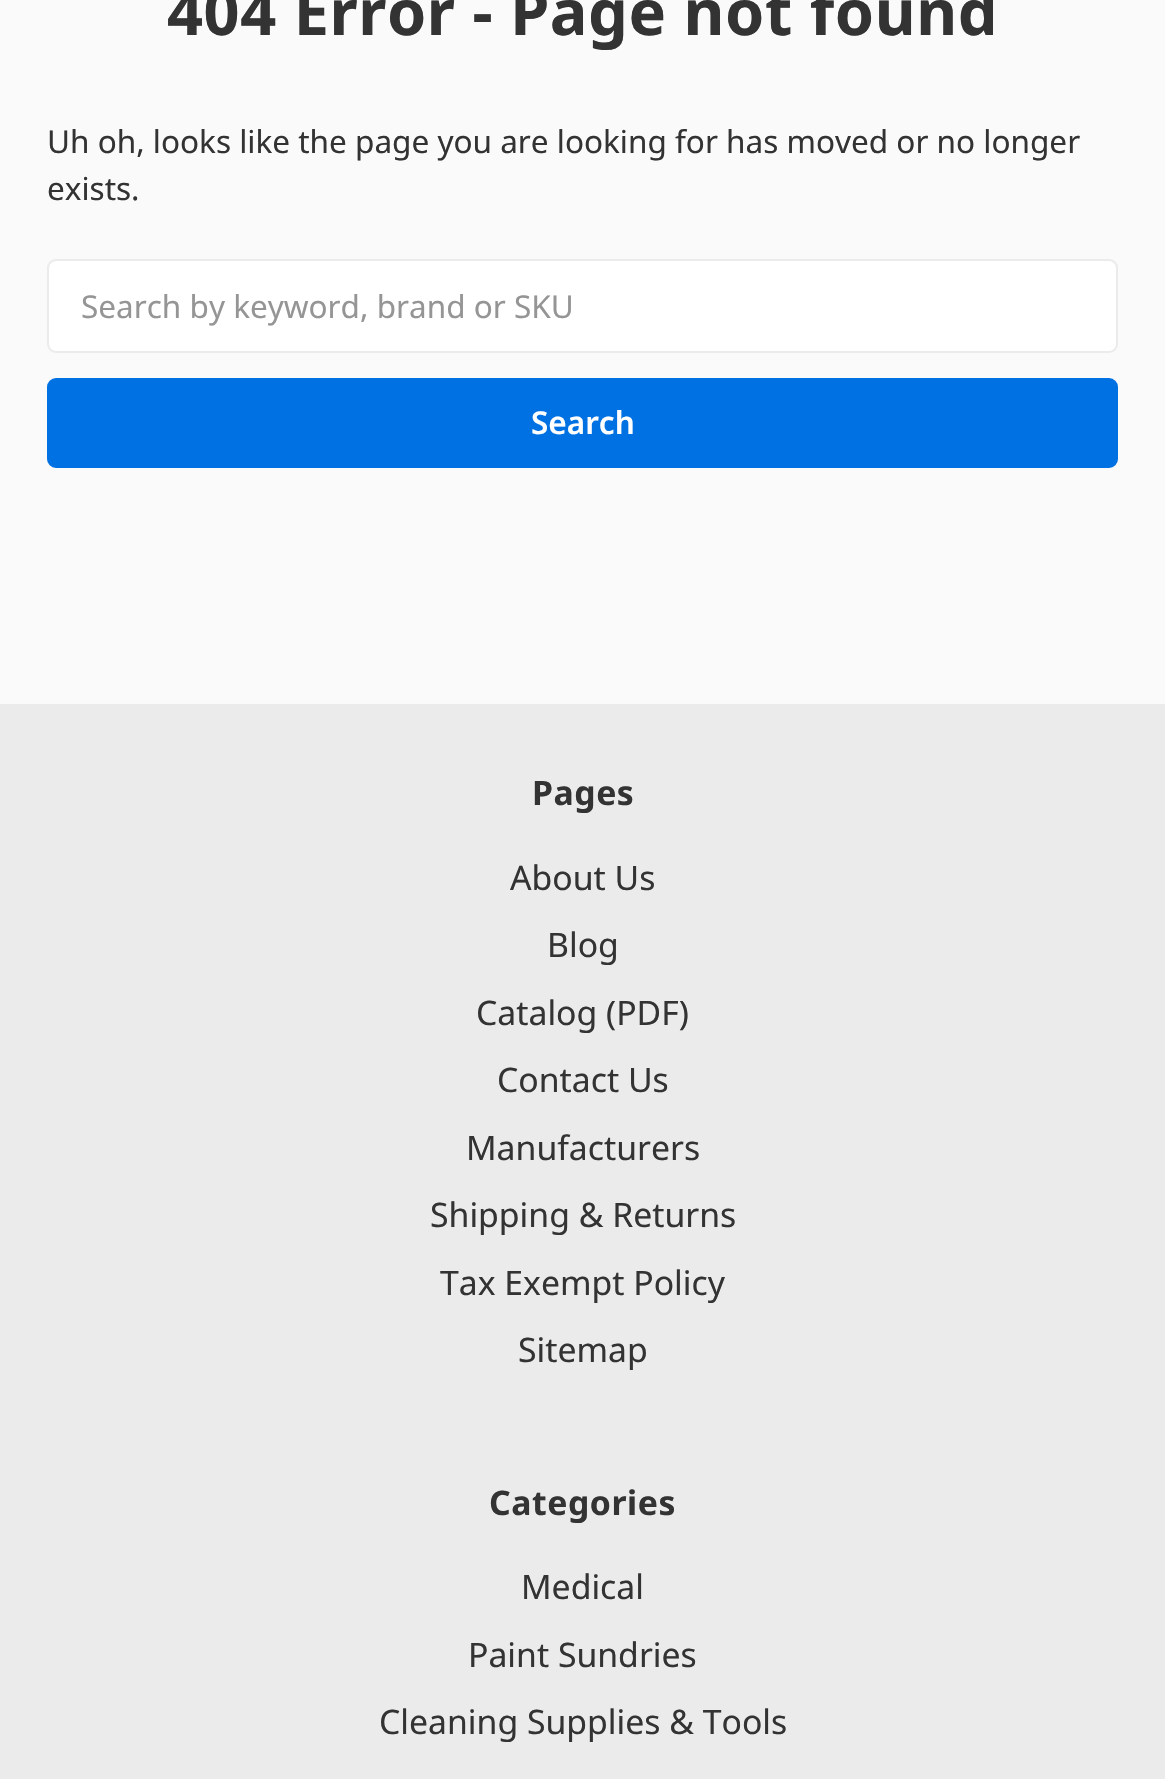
static SkFont makeFont(const char* family, int weight, float size, bool italic = false) {
  SkFontStyle style(weight, SkFontStyle::kNormal_Width,
    italic ? SkFontStyle::kItalic_Slant : SkFontStyle::kUpright_Slant);
  SkFont result(fontMgr->matchFamilyStyle(family, style), size);
  result.setSubpixel(true);
  return result;
}

static void text(SkCanvas* c, const char* s, float x, float y, const SkFont& font, SkColor color) {
  SkPaint ink(SkColor4f::FromColor(color));
  ink.setAntiAlias(true);
  c->drawString(s, x, y, font, ink);
}

static void spacedText(SkCanvas* c, const char* s, float x, float y, const SkFont& font, const SkPaint& ink, float letter, float word) {
  std::vector<SkGlyphID> glyphs(font.countText(s, strlen(s), SkTextEncoding::kUTF8));
  std::vector<float> xs(glyphs.size());
  font.textToGlyphs(s, strlen(s), SkTextEncoding::kUTF8, glyphs);
  font.getXPos(glyphs, xs, x);
  float extra = 0;
  for (size_t i = 0; i < glyphs.size(); i++) {
    xs[i] += extra;
    extra += letter + word * (glyphs[i] == font.unicharToGlyph(' '));
  }
  c->drawTextBlob(SkTextBlob::MakeFromPosHGlyphs(glyphs, xs, y, font), 0, 0, ink);
}

static void box(SkCanvas* c, float l, float t, float r, float b, SkColor color) {
  SkPaint ink(SkColor4f::FromColor(color));
  ink.setAntiAlias(true);
  c->drawRect(SkRect::MakeLTRB(l, t, r, b), ink);
}

void draw(SkCanvas* c) {
  SkPaint paint;
  paint.setAntiAlias(true);
  c->clear(0xfffafafa);
  SkFont face1 = makeFont("Noto Sans", 700, 63);
  paint.setColor(0xff333333);
  spacedText(c, "404 Error - Page not found", 167, 35, face1, paint, 0.55f, 0);
  SkFont face2 = makeFont("Noto Sans", 400, 31.5f);
  text(c, "Uh oh, looks like the page you are looking for has moved or no longer", 47, 153, face2, 0xff333333);
  text(c, "exists.", 47, 200, face2, 0xff333333);
  paint.setColor(0xffffffff);
  c->drawRoundRect(SkRect::MakeLTRB(48, 260, 1117, 352), 8, 8, paint);
  paint.setStyle(SkPaint::kStroke_Style);
  paint.setStrokeWidth(2);
  paint.setColor(0xffebebeb);
  c->drawRoundRect(SkRect::MakeLTRB(48, 260, 1117, 352), 8, 8, paint);
  text(c, "Search by keyword, brand or SKU", 81, 318, face2, 0xff959595);
  paint.setStyle(SkPaint::kFill_Style);
  paint.setColor(0xff0071e3);
  c->drawRoundRect(SkRect::MakeLTRB(48, 379, 1117, 467), 8, 8, paint);
  paint.setStyle(SkPaint::kStroke_Style);
  c->drawRoundRect(SkRect::MakeLTRB(48, 379, 1117, 467), 8, 8, paint);
  SkFont face3 = makeFont("Noto Sans", 600, 31.5f);
  text(c, "Search", 531, 434, face3, 0xffffffff);
  box(c, 0, 704, 1165, 1779, 0xffebebeb);
  SkFont face4 = makeFont("Noto Sans", 700, 33.75f);
  paint.setStyle(SkPaint::kFill_Style);
  paint.setColor(0xff333333);
  spacedText(c, "Pages", 532, 805, face4, paint, 0.55f, 0);
  SkFont face5 = makeFont("Noto Sans", 400, 33.75f);
  text(c, "About Us", 510, 890, face5, 0xff333333);
  text(c, "Blog", 547, 957, face5, 0xff333333);
  text(c, "Catalog (PDF)", 476, 1025, face5, 0xff333333);
  text(c, "Contact Us", 497, 1092, face5, 0xff333333);
  text(c, "Manufacturers", 466, 1160, face5, 0xff333333);
  text(c, "Shipping & Returns", 430, 1227, face5, 0xff333333);
  text(c, "Tax Exempt Policy", 440, 1295, face5, 0xff333333);
  text(c, "Sitemap", 518, 1362, face5, 0xff333333);
  spacedText(c, "Categories", 489, 1515, face4, paint, 0.55f, 0);
  text(c, "Medical", 521, 1599, face5, 0xff333333);
  text(c, "Paint Sundries", 468, 1667, face5, 0xff333333);
  text(c, "Cleaning Supplies & Tools", 379, 1734, face5, 0xff333333);
}
